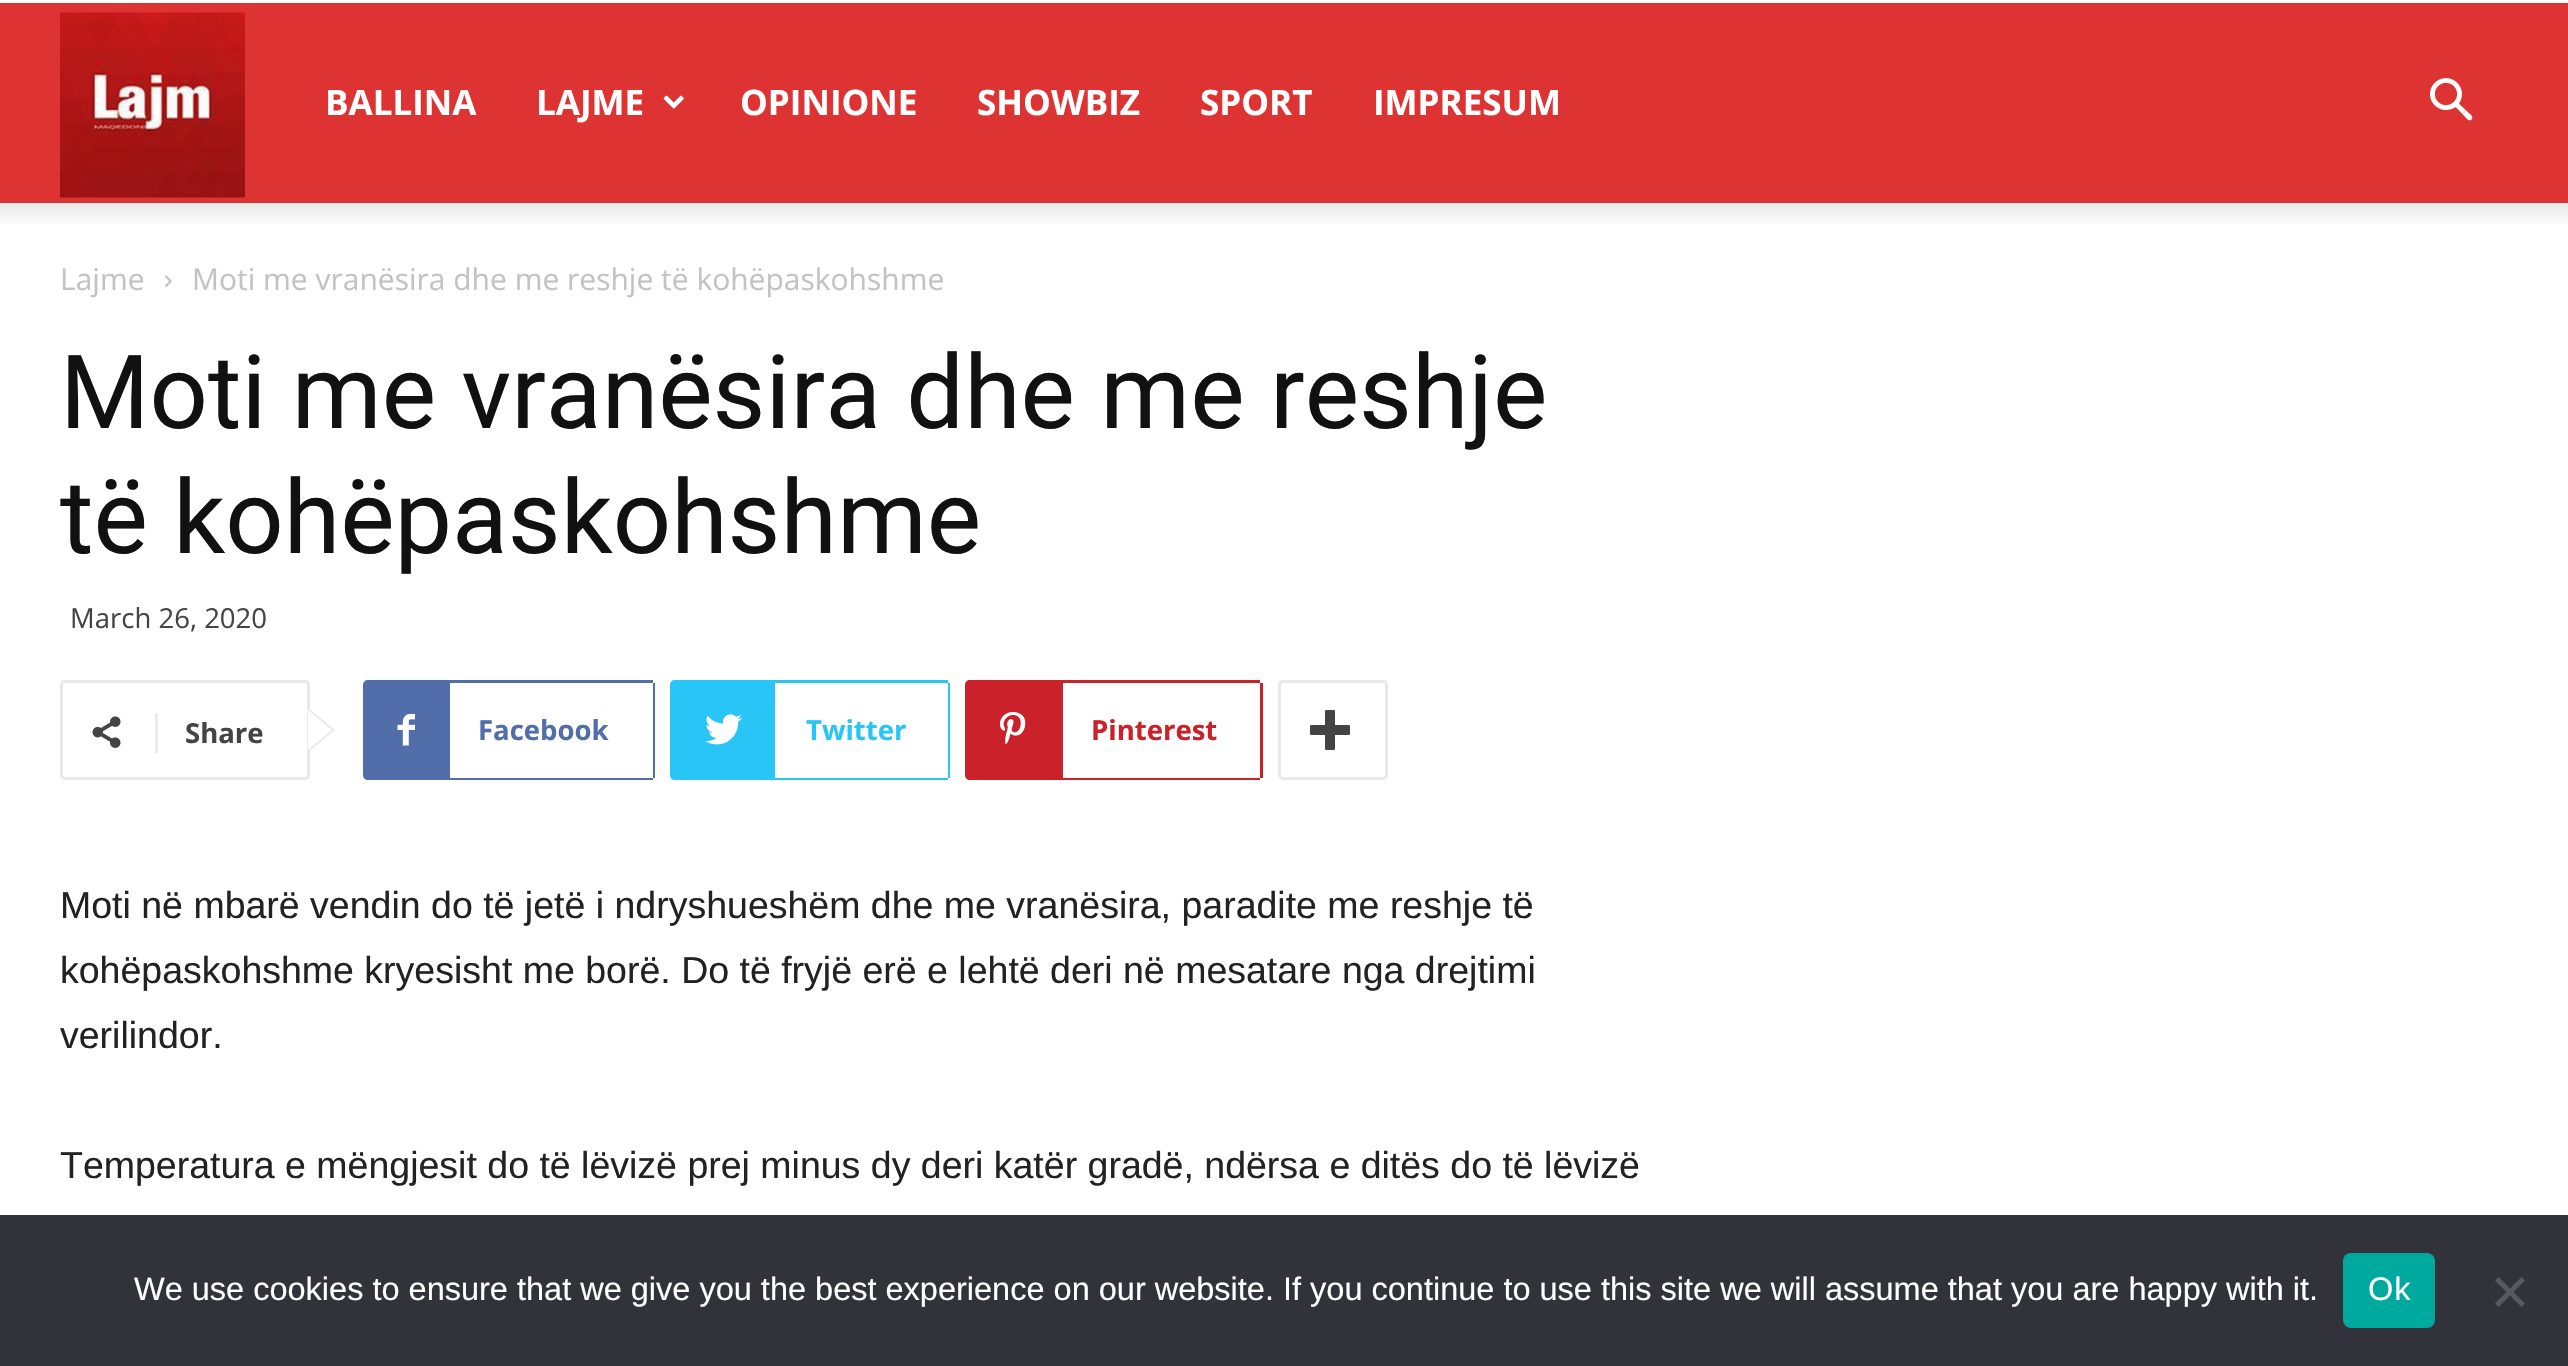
static SkFont makeFont(const char* family, int weight, float size, bool italic = false) {
  SkFontStyle style(weight, SkFontStyle::kNormal_Width,
    italic ? SkFontStyle::kItalic_Slant : SkFontStyle::kUpright_Slant);
  SkFont result(fontMgr->matchFamilyStyle(family, style), size);
  result.setSubpixel(true);
  return result;
}

static void text(SkCanvas* c, const char* s, float x, float y, const SkFont& font, SkColor color) {
  SkPaint ink(SkColor4f::FromColor(color));
  ink.setAntiAlias(true);
  c->drawString(s, x, y, font, ink);
}

static void spacedText(SkCanvas* c, const char* s, float x, float y, const SkFont& font, const SkPaint& ink, float letter, float word) {
  std::vector<SkGlyphID> glyphs(font.countText(s, strlen(s), SkTextEncoding::kUTF8));
  std::vector<float> xs(glyphs.size());
  font.textToGlyphs(s, strlen(s), SkTextEncoding::kUTF8, glyphs);
  font.getXPos(glyphs, xs, x);
  float extra = 0;
  for (size_t i = 0; i < glyphs.size(); i++) {
    xs[i] += extra;
    extra += letter + word * (glyphs[i] == font.unicharToGlyph(' '));
  }
  c->drawTextBlob(SkTextBlob::MakeFromPosHGlyphs(glyphs, xs, y, font), 0, 0, ink);
}

static void box(SkCanvas* c, float l, float t, float r, float b, SkColor color) {
  SkPaint ink(SkColor4f::FromColor(color));
  ink.setAntiAlias(true);
  c->drawRect(SkRect::MakeLTRB(l, t, r, b), ink);
}

static void roundBox(SkCanvas* c, float l, float t, float r, float b, float radius, SkColor color) {
  SkPaint ink(SkColor4f::FromColor(color));
  ink.setAntiAlias(true);
  c->drawRoundRect(SkRect::MakeLTRB(l, t, r, b), radius, radius, ink);
}

static void picture(SkCanvas* c, const char* path, float l, float t, float r, float b) {
  auto image = SkImages::DeferredFromEncodedData(SkData::MakeFromFileName(path));
  c->drawImageRect(image, SkRect::MakeLTRB(l, t, r, b), SkSamplingOptions());
}

void draw(SkCanvas* c) {
  SkPaint paint;
  paint.setAntiAlias(true);
  c->clear(0xffffffff);
  box(c, 0, 3, 2568, 203, 0xffdd3333);
  picture(c, "img_01.png", 60, 12, 245, 198);
  SkFont face1 = makeFont("Open Sans", 700, 35);
  text(c, "BALLINA", 325, 115, face1, 0xffffffff);
  text(c, "LAJME", 536, 115, face1, 0xffffffff);
  picture(c, "img_02.png", 663, 95, 684, 109);
  text(c, "OPINIONE", 740, 115, face1, 0xffffffff);
  text(c, "SHOWBIZ", 977, 115, face1, 0xffffffff);
  text(c, "SPORT", 1200, 115, face1, 0xffffffff);
  text(c, "IMPRESUM", 1373, 115, face1, 0xffffffff);
  picture(c, "img_03.png", 2430, 78, 2473, 121);
  picture(c, "img_04.png", 0, 202, 2568, 224);
  SkFont face2 = makeFont("Open Sans", 400, 30);
  text(c, "Lajme", 60, 290, face2, 0xffc3c3c3);
  picture(c, "img_05.png", 165, 275, 172, 287);
  text(c, "Moti me vranësira dhe me reshje të kohëpaskohshme", 192, 290, face2, 0xffc3c3c3);
  SkFont face3 = makeFont("Roboto", 400, 102.5f);
  text(c, "Moti me vranësira dhe me reshje", 60, 428, face3, 0xff111111);
  text(c, "të kohëpaskohshme", 60, 553, face3, 0xff111111);
  SkFont face4 = makeFont("Open Sans", 400, 27.5f);
  text(c, "March 26, 2020", 70, 628, face4, 0xff444444);
  paint.setStyle(SkPaint::kStroke_Style);
  paint.setStrokeWidth(3);
  paint.setColor(0xffe9e9e9);
  c->drawRoundRect(SkRect::MakeLTRB(61.5f, 681.5f, 308.5f, 778.5f), 3.5f, 3.5f, paint);
  paint.setStyle(SkPaint::kFill_Style);
  c->drawPath(SkPathBuilder().moveTo(308, 752).lineTo(308, 708).lineTo(335, 730).close().detach(), paint);
  picture(c, "img_06.png", 92, 716, 121, 748);
  box(c, 155, 713, 158, 753, 0xffebebeb);
  SkFont face5 = makeFont("Open Sans", 700, 27.5f);
  text(c, "Share", 185, 743, face5, 0xff444444);
  paint.setColor(0xffffffff);
  c->drawPath(SkPathBuilder().moveTo(308, 750).lineTo(308, 710).lineTo(332, 730).close().detach(), paint);
  box(c, 448, 680, 653, 683, 0xff516eab);
  box(c, 448, 778, 653, 780, 0xff516eab);
  paint.setColor(0xff516eab);
  c->drawPath(SkPathBuilder().moveTo(368, 680).lineTo(450, 680).lineTo(450, 780).lineTo(368, 780).cubicTo(365, 780, 363, 778, 363, 775).lineTo(363, 685).cubicTo(363, 682, 365, 680, 368, 680).close().detach(), paint);
  picture(c, "img_07.png", 397, 713, 415, 746);
  box(c, 653, 683, 655, 778, 0xff516eab);
  text(c, "Facebook", 478, 740, face5, 0xff516eab);
  paint.setColor(0xff29c5f6);
  c->drawPath(SkPathBuilder().moveTo(675, 680).lineTo(775, 680).lineTo(775, 780).lineTo(675, 780).cubicTo(672, 780, 670, 778, 670, 775).lineTo(670, 685).cubicTo(670, 682, 672, 680, 675, 680).close().detach(), paint);
  picture(c, "img_08.png", 705, 714, 742, 745);
  box(c, 775, 680, 948, 683, 0xff29c5f6);
  box(c, 948, 683, 950, 778, 0xff29c5f6);
  box(c, 775, 778, 948, 780, 0xff29c5f6);
  text(c, "Twitter", 806, 740, face5, 0xff29c5f6);
  box(c, 1060, 680, 1260, 683, 0xffca212a);
  box(c, 1060, 778, 1260, 780, 0xffca212a);
  paint.setColor(0xffca212a);
  c->drawPath(SkPathBuilder().moveTo(970, 680).lineTo(1063, 680).lineTo(1063, 780).lineTo(970, 780).cubicTo(967, 780, 965, 778, 965, 775).lineTo(965, 685).cubicTo(965, 682, 967, 680, 970, 680).close().detach(), paint);
  picture(c, "img_09.png", 1000, 712, 1026, 745);
  box(c, 1260, 683, 1263, 778, 0xffca212a);
  text(c, "Pinterest", 1091, 740, face5, 0xffca212a);
  paint.setStyle(SkPaint::kStroke_Style);
  paint.setColor(0xffe9e9e9);
  c->drawRoundRect(SkRect::MakeLTRB(1279.5f, 681.5f, 1386.5f, 778.5f), 3.5f, 3.5f, paint);
  picture(c, "img_10.png", 1310, 710, 1350, 750);
  SkFont face6 = makeFont("Liberation Sans", 400, 37.5f);
  text(c, "Moti në mbarë vendin do të jetë i ndryshueshëm dhe me vranësira, paradite me reshje të", 60, 918, face6, 0xff222222);
  text(c, "kohëpaskohshme kryesisht me borë. Do të fryjë erë e lehtë deri në mesatare nga drejtimi", 60, 983, face6, 0xff222222);
  text(c, "verilindor.", 60, 1048, face6, 0xff222222);
  text(c, "Temperatura e mëngjesit do të lëvizë prej minus dy deri katër gradë, ndërsa e ditës do të lëvizë", 60, 1178, face6, 0xff222222);
  box(c, 0, 1215, 2568, 1366, 0xff32323a);
  SkFont face7 = makeFont("Liberation Sans", 400, 32.5f);
  text(c, "We use cookies to ensure that we give you the best experience on our website. If you continue to use this site we will assume that you are happy with it.", 134, 1300, face7, 0xffffffff);
  roundBox(c, 2343, 1253, 2435, 1328, 8, 0xff00a99d);
  paint.setStyle(SkPaint::kFill_Style);
  paint.setColor(0xffffffff);
  spacedText(c, "Ok", 2368, 1300, face7, paint, 1, 0);
  paint.setColor(0xff59595d);
  c->drawPath(SkPathBuilder().moveTo(2521.5f, 1277).lineTo(2525, 1280.5f).lineTo(2498.5f, 1307).lineTo(2495, 1303.5f).close().detach(), paint);
  c->drawPath(SkPathBuilder().moveTo(2495, 1280.5f).lineTo(2498.5f, 1277).lineTo(2525, 1303.5f).lineTo(2521.5f, 1307).close().detach(), paint);
}
